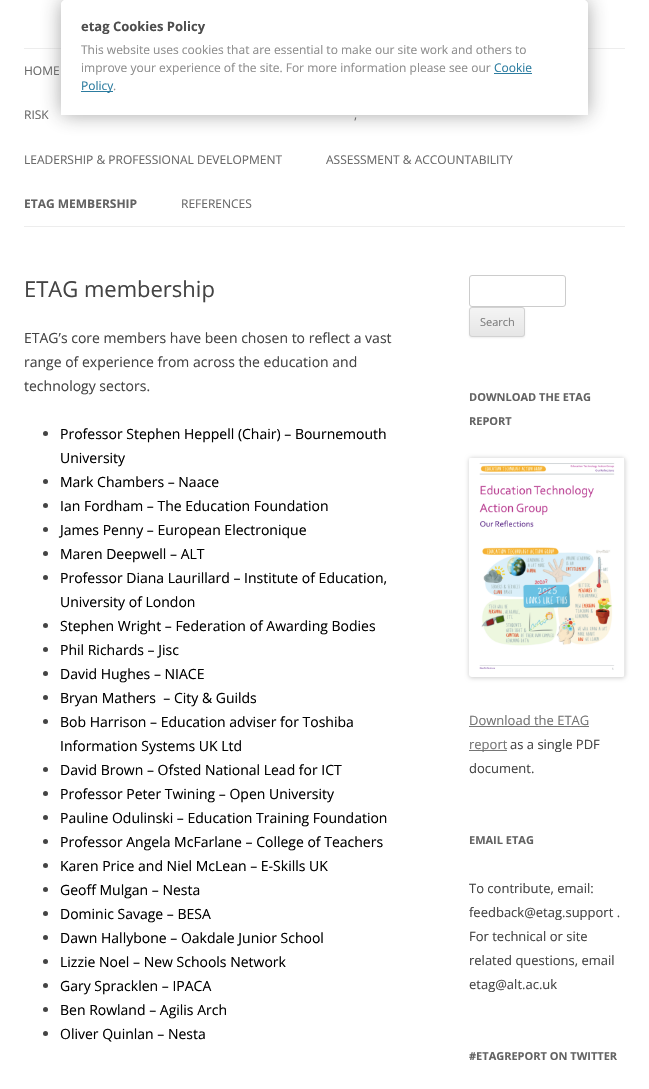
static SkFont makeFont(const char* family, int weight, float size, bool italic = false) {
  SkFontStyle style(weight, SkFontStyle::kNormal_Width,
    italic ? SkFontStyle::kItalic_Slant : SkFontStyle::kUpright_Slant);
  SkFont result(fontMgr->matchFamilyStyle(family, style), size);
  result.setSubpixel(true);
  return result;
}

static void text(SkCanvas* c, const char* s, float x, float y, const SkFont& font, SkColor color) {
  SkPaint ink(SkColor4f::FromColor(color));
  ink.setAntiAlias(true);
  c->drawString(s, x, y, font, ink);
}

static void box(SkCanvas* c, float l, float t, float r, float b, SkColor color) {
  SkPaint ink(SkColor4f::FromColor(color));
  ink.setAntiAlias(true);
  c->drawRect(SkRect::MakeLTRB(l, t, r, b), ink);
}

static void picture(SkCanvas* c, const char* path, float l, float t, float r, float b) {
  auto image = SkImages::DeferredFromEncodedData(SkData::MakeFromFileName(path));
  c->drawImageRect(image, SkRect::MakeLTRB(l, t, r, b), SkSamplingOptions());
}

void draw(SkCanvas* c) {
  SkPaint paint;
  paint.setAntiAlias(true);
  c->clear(0xffffffff);
  box(c, 24, 48, 625, 49, 0xffededed);
  c->save();
  c->clipPath(SkPathBuilder(SkPathFillType::kEvenOdd).moveTo(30, 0).lineTo(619, 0).lineTo(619, 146).lineTo(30, 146).close().moveTo(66, 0).lineTo(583, 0).cubicTo(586, 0, 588, 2, 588, 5).lineTo(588, 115).lineTo(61, 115).lineTo(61, 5).cubicTo(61, 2, 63, 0, 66, 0).close().detach(), true);
  paint.setColor(0xf2a1a1a1);
  paint.setMaskFilter(SkMaskFilter::MakeBlur(kNormal_SkBlurStyle, 10));
  c->drawRoundRect(SkRect::MakeLTRB(61, 0, 588, 115), 5, 5, paint);
  paint.setMaskFilter(nullptr);
  c->restore();
  paint.setColor(0xf2ffffff);
  c->drawPath(SkPathBuilder().moveTo(66, 0).lineTo(583, 0).cubicTo(586, 0, 588, 2, 588, 5).lineTo(588, 115).lineTo(61, 115).lineTo(61, 5).cubicTo(61, 2, 63, 0, 66, 0).close().detach(), paint);
  SkFont face1 = makeFont("Open Sans", 700, 13);
  text(c, "etag Cookies Policy", 81, 31, face1, 0xff4d4d4d);
  SkFont face2 = makeFont("Open Sans", 400, 12);
  text(c, "This website uses cookies that are essential to make our site work and others to", 81, 54, face2, 0xff8e8e8e);
  text(c, "improve your experience of the site. For more information please see our", 81, 72, face2, 0xff8e8e8e);
  text(c, "Cookie", 494, 72, face2, 0xff2c7ca0);
  box(c, 494, 73, 532, 74, 0xf221759b);
  box(c, 81, 91, 113, 92, 0xff2c7ca0);
  text(c, "Policy", 81, 90, face2, 0xff2c7ca0);
  text(c, ".", 113, 90, face2, 0xff8e8e8e);
  box(c, 24, 226, 625, 227, 0xffededed);
  text(c, "HOME", 24, 75, face2, 0xff6a6a6a);
  text(c, "RISK", 24, 119, face2, 0xff6a6a6a);
  text(c, ",", 354, 119, face2, 0xff6a6a6a);
  text(c, "LEADERSHIP & PROFESSIONAL DEVELOPMENT", 24, 164, face2, 0xff6a6a6a);
  text(c, "ASSESSMENT & ACCOUNTABILITY", 326, 164, face2, 0xff6a6a6a);
  SkFont face3 = makeFont("Open Sans", 700, 12);
  text(c, "ETAG MEMBERSHIP", 24, 208, face3, 0xff636363);
  text(c, "REFERENCES", 181, 208, face2, 0xff6a6a6a);
  SkFont face4 = makeFont("Open Sans", 400, 22);
  text(c, "ETAG membership", 24, 297, face4, 0xff444444);
  SkFont face5 = makeFont("Open Sans", 400, 14);
  text(c, "ETAG’s core members have been chosen to reflect a vast", 24, 343, face5, 0xff444444);
  text(c, "range of experience from across the education and", 24, 367, face5, 0xff444444);
  text(c, "technology sectors.", 24, 391, face5, 0xff444444);
  paint.setColor(0xff444444);
  c->drawCircle(45.5f, 433.5f, 2.5f, paint);
  text(c, "Professor Stephen Heppell (Chair) – Bournemouth", 60, 439, face5, 0xff000000);
  text(c, "University", 60, 463, face5, 0xff000000);
  c->drawCircle(45.5f, 481.5f, 2.5f, paint);
  text(c, "Mark Chambers – Naace", 60, 487, face5, 0xff000000);
  c->drawCircle(45.5f, 505.5f, 2.5f, paint);
  text(c, "Ian Fordham – The Education Foundation", 60, 511, face5, 0xff000000);
  c->drawCircle(45.5f, 529.5f, 2.5f, paint);
  text(c, "James Penny – European Electronique", 60, 535, face5, 0xff000000);
  c->drawCircle(45.5f, 553.5f, 2.5f, paint);
  text(c, "Maren Deepwell – ALT", 60, 559, face5, 0xff000000);
  c->drawCircle(45.5f, 577.5f, 2.5f, paint);
  text(c, "Professor Diana Laurillard – Institute of Education,", 60, 583, face5, 0xff000000);
  text(c, "University of London", 60, 607, face5, 0xff000000);
  c->drawCircle(45.5f, 625.5f, 2.5f, paint);
  text(c, "Stephen Wright – Federation of Awarding Bodies", 60, 631, face5, 0xff000000);
  c->drawCircle(45.5f, 649.5f, 2.5f, paint);
  text(c, "Phil Richards – Jisc", 60, 655, face5, 0xff000000);
  c->drawCircle(45.5f, 673.5f, 2.5f, paint);
  text(c, "David Hughes – NIACE", 60, 679, face5, 0xff000000);
  c->drawCircle(45.5f, 697.5f, 2.5f, paint);
  text(c, "Bryan Mathers  – City & Guilds", 60, 703, face5, 0xff000000);
  c->drawCircle(45.5f, 721.5f, 2.5f, paint);
  text(c, "Bob Harrison – Education adviser for Toshiba", 60, 727, face5, 0xff000000);
  text(c, "Information Systems UK Ltd", 60, 751, face5, 0xff000000);
  c->drawCircle(45.5f, 769.5f, 2.5f, paint);
  text(c, "David Brown – Ofsted National Lead for ICT", 60, 775, face5, 0xff000000);
  c->drawCircle(45.5f, 793.5f, 2.5f, paint);
  text(c, "Professor Peter Twining – Open University", 60, 799, face5, 0xff000000);
  c->drawCircle(45.5f, 817.5f, 2.5f, paint);
  text(c, "Pauline Odulinski – Education Training Foundation", 60, 823, face5, 0xff000000);
  c->drawCircle(45.5f, 841.5f, 2.5f, paint);
  text(c, "Professor Angela McFarlane – College of Teachers", 60, 847, face5, 0xff000000);
  c->drawCircle(45.5f, 865.5f, 2.5f, paint);
  text(c, "Karen Price and Niel McLean – E-Skills UK", 60, 871, face5, 0xff000000);
  c->drawCircle(45.5f, 889.5f, 2.5f, paint);
  text(c, "Geoff Mulgan – Nesta", 60, 895, face5, 0xff000000);
  c->drawCircle(45.5f, 913.5f, 2.5f, paint);
  text(c, "Dominic Savage – BESA", 60, 919, face5, 0xff000000);
  c->drawCircle(45.5f, 937.5f, 2.5f, paint);
  text(c, "Dawn Hallybone – Oakdale Junior School", 60, 943, face5, 0xff000000);
  c->drawCircle(45.5f, 961.5f, 2.5f, paint);
  text(c, "Lizzie Noel – New Schools Network", 60, 967, face5, 0xff000000);
  c->drawCircle(45.5f, 985.5f, 2.5f, paint);
  text(c, "Gary Spracklen – IPACA", 60, 991, face5, 0xff000000);
  c->drawCircle(45.5f, 1009.5f, 2.5f, paint);
  text(c, "Ben Rowland – Agilis Arch", 60, 1015, face5, 0xff000000);
  c->drawCircle(45.5f, 1033.5f, 2.5f, paint);
  text(c, "Oliver Quinlan – Nesta", 60, 1039, face5, 0xff000000);
  paint.setStyle(SkPaint::kStroke_Style);
  paint.setStrokeWidth(1);
  paint.setColor(0xffcccccc);
  c->drawRoundRect(SkRect::MakeLTRB(469.5f, 275.5f, 565.5f, 306.5f), 2.5f, 2.5f, paint);
  paint.setStyle(SkPaint::kFill_Style);
  paint.setColor(0x1a404040);
  paint.setMaskFilter(SkMaskFilter::MakeBlur(kNormal_SkBlurStyle, 1));
  c->drawRoundRect(SkRect::MakeLTRB(469, 308, 525, 338), 3, 3, paint);
  paint.setMaskFilter(nullptr);
  c->save();
  c->clipPath(SkPathBuilder().moveTo(472, 307).lineTo(522, 307).cubicTo(523.5f, 307, 525, 308.5f, 525, 310).lineTo(525, 334).cubicTo(525, 335.5f, 523.5f, 337, 522, 337).lineTo(472, 337).cubicTo(470.5f, 337, 469, 335.5f, 469, 334).lineTo(469, 310).cubicTo(469, 308.5f, 470.5f, 307, 472, 307).close().detach(), true);
  {
    const SkColor colors[] = {0xfff4f4f4, 0xffe6e6e6};
    const float stops[] = {0, 1};
    const SkPoint ends[] = {{497, 308}, {497, 336}};
    paint.setShader(SkGradientShader::MakeLinear(ends, colors, stops, 2, SkTileMode::kClamp));
    paint.setAlpha(255);
  }
  c->drawRect(SkRect::MakeLTRB(469, 308, 525, 336), paint);
  c->restore();
  paint.setStyle(SkPaint::kStroke_Style);
  paint.setShader(nullptr);
  paint.setColor(0xffd2d2d2);
  c->drawRoundRect(SkRect::MakeLTRB(469.5f, 307.5f, 524.5f, 336.5f), 2.5f, 2.5f, paint);
  SkFont face6 = makeFont("Open Sans", 400, 11);
  text(c, "Search", 480, 326, face6, 0xff7c7c7c);
  SkFont face7 = makeFont("Open Sans", 700, 11);
  text(c, "DOWNLOAD THE ETAG", 469, 401, face7, 0xff636363);
  text(c, "REPORT", 469, 425, face7, 0xff636363);
  paint.setStyle(SkPaint::kFill_Style);
  paint.setColor(0x33000000);
  paint.setMaskFilter(SkMaskFilter::MakeBlur(kNormal_SkBlurStyle, 2));
  c->drawRoundRect(SkRect::MakeLTRB(469, 458, 625, 678), 3, 3, paint);
  paint.setMaskFilter(nullptr);
  picture(c, "img_01.png", 469, 458, 625, 677);
  SkFont face8 = makeFont("Open Sans", 400, 13);
  text(c, "Download the ETAG", 469, 725, face8, 0xff757575);
  box(c, 469, 726, 589, 727, 0xff757575);
  box(c, 469, 750, 507, 751, 0xff757575);
  text(c, "report", 469, 749, face8, 0xff757575);
  text(c, "as a single PDF", 510, 749, face8, 0xff444444);
  text(c, "document.", 469, 773, face8, 0xff444444);
  text(c, "EMAIL ETAG", 469, 844, face7, 0xff636363);
  text(c, "To contribute, email:", 469, 893, face8, 0xff444444);
  text(c, "feedback@etag.support .", 469, 917, face8, 0xff444444);
  text(c, "For technical or site", 469, 941, face8, 0xff444444);
  text(c, "related questions, email", 469, 965, face8, 0xff444444);
  text(c, "etag@alt.ac.uk", 469, 989, face8, 0xff444444);
  text(c, "#ETAGREPORT ON TWITTER", 469, 1060, face7, 0xff636363);
}
